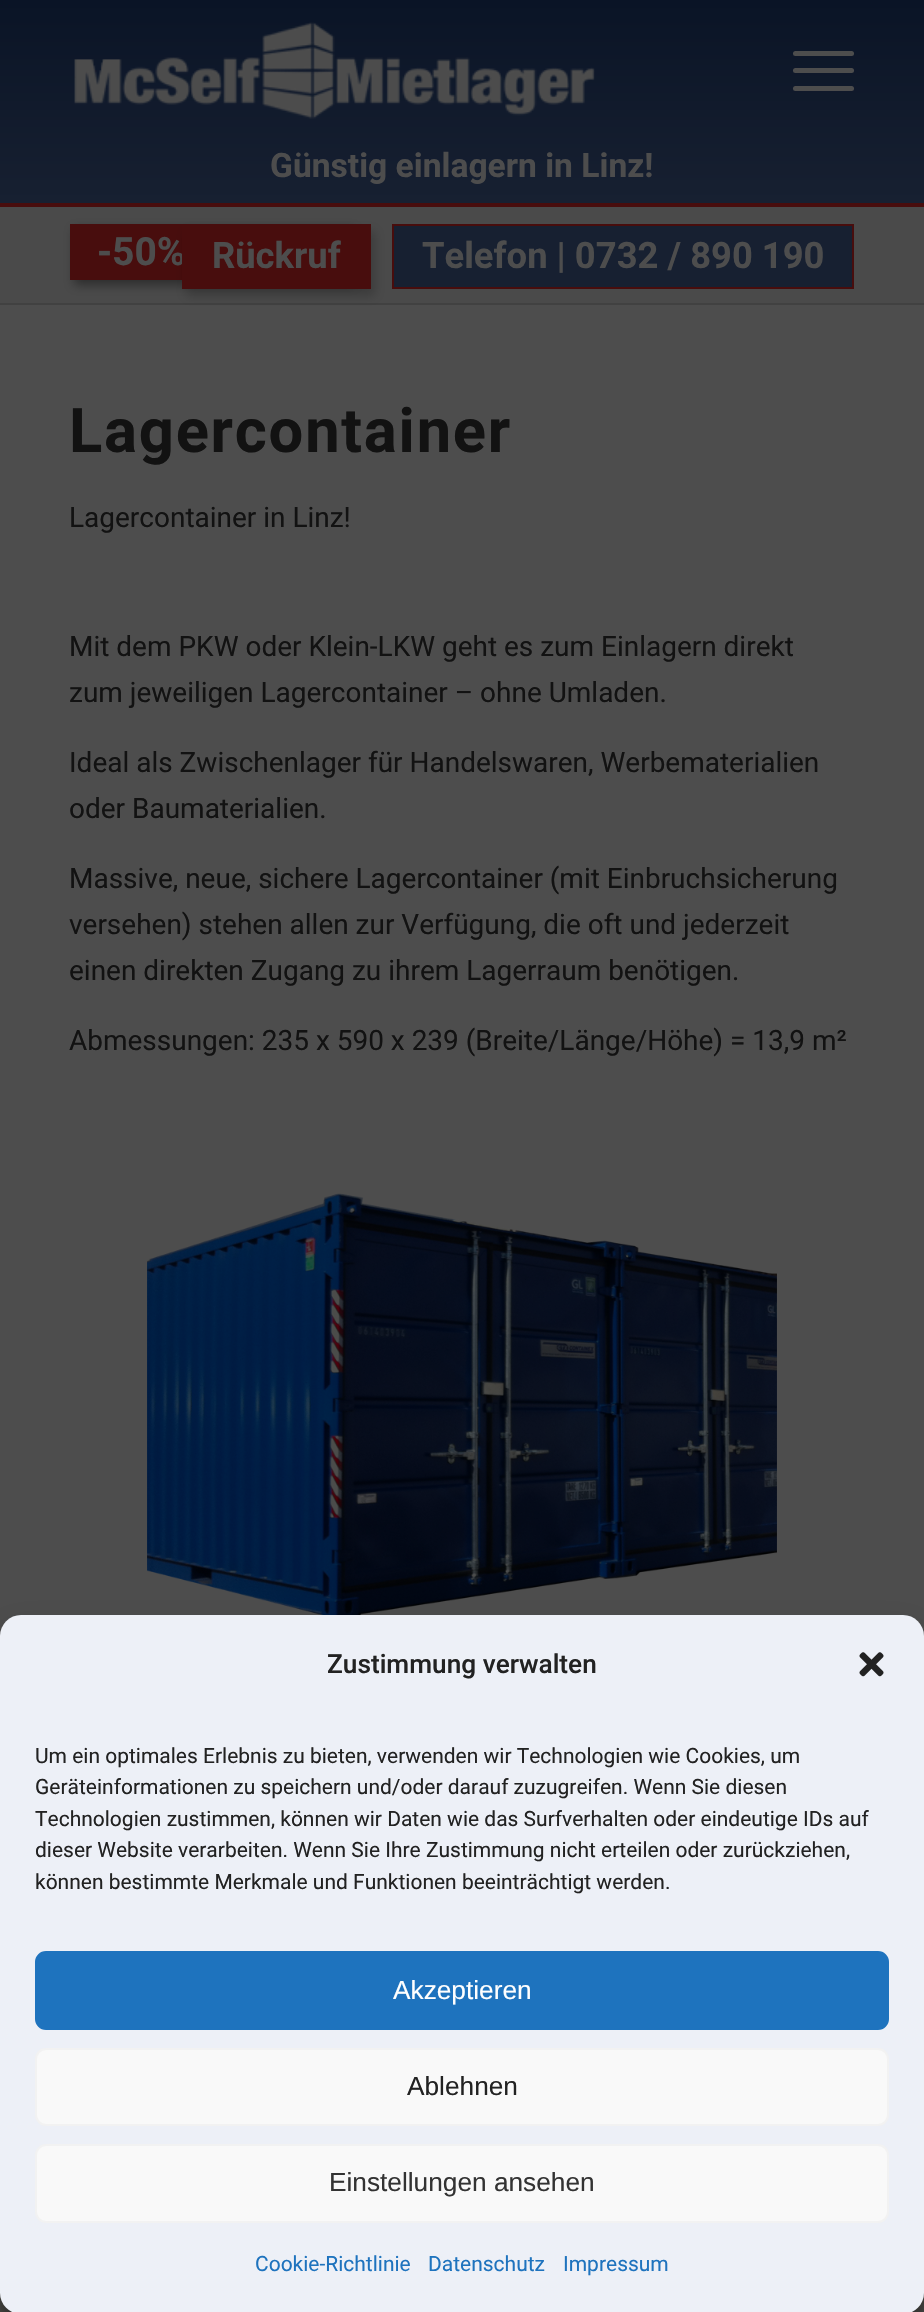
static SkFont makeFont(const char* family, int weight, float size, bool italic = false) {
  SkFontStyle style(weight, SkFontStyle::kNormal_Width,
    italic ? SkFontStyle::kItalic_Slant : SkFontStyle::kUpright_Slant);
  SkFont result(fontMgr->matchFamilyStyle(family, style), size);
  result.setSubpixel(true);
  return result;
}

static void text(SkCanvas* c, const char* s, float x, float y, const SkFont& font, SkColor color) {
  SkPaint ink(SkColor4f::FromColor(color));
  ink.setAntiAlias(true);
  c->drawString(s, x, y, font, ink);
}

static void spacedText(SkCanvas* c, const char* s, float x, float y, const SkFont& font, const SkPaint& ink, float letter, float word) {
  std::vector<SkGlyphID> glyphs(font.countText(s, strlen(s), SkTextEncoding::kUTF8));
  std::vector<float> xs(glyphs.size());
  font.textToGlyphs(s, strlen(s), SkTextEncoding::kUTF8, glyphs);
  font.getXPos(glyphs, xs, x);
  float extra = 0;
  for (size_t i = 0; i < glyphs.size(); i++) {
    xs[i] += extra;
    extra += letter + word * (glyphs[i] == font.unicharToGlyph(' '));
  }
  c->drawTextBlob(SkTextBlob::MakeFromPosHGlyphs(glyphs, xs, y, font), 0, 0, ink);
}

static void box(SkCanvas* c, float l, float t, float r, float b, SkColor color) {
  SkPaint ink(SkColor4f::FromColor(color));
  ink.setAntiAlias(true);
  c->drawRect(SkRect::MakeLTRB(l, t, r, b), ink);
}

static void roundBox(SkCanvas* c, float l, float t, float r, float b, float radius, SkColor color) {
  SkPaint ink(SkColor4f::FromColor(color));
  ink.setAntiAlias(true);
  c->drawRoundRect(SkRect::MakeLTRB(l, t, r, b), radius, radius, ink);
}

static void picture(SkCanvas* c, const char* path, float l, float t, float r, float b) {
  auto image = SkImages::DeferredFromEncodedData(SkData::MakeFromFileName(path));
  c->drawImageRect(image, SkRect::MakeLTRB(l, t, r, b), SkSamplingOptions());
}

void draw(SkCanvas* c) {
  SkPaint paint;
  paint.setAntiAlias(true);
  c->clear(0xff4d4d4d);
  {
    const SkColor colors[] = {0xff0a1426, 0xff172031};
    const float stops[] = {0, 1};
    const SkPoint ends[] = {{462, 0}, {462, 203}};
    paint.setShader(SkGradientShader::MakeLinear(ends, colors, stops, 2, SkTileMode::kClamp));
    paint.setAlpha(255);
  }
  c->drawRect(SkRect::MakeLTRB(0, 0, 924, 203), paint);
  box(c, 0, 203, 924, 207, 0xff480d0d);
  picture(c, "img_01.png", 74, 22, 595, 119);
  roundBox(c, 793, 68, 854, 73, 2.5f, 0xff4d4d4d);
  roundBox(c, 793, 51, 854, 56, 2.5f, 0xff4d4d4d);
  roundBox(c, 793, 86, 854, 91, 2.5f, 0xff4d4d4d);
  SkFont face1 = makeFont("Roboto", 700, 33.6f);
  text(c, "Günstig einlagern in Linz!", 270, 177, face1, 0xff4d4d4d);
  box(c, 0, 207, 924, 303, 0xff4a4a4a);
  box(c, 0, 303, 924, 305, 0xff414141);
  paint.setShader(nullptr);
  paint.setColor(0x66000000);
  paint.setMaskFilter(SkMaskFilter::MakeBlur(kNormal_SkBlurStyle, 5));
  c->drawRect(SkRect::MakeLTRB(74, 229, 354, 285), paint);
  paint.setMaskFilter(nullptr);
  box(c, 70, 224, 182, 280, 0xff480d0d);
  SkFont face2 = makeFont("Roboto", 700, 39);
  text(c, "-50%", 97, 265, face2, 0xff4d4d4d);
  paint.setColor(0x33000000);
  paint.setMaskFilter(SkMaskFilter::MakeBlur(kNormal_SkBlurStyle, 5));
  c->drawRect(SkRect::MakeLTRB(186, 231, 375, 296), paint);
  paint.setMaskFilter(nullptr);
  box(c, 182, 224, 371, 289, 0xff480d0d);
  SkFont face3 = makeFont("Roboto", 700, 36.4f);
  text(c, "Rückruf", 212, 268, face3, 0xff4d4d4d);
  paint.setColor(0xff172031);
  c->drawRect(SkRect::MakeLTRB(393, 225, 853, 288), paint);
  paint.setStyle(SkPaint::kStroke_Style);
  paint.setStrokeWidth(2);
  paint.setColor(0xff480d0d);
  c->drawRect(SkRect::MakeLTRB(393, 225, 853, 288), paint);
  text(c, "Telefon | 0732 / 890 190", 422, 268, face3, 0xff4d4d4d);
  SkFont face4 = makeFont("Roboto", 700, 61.5f);
  paint.setStyle(SkPaint::kFill_Style);
  paint.setColor(0xff121212);
  spacedText(c, "Lagercontainer", 69, 452, face4, paint, 1.75f, 0);
  SkFont face5 = makeFont("Roboto", 400, 28);
  text(c, "Lagercontainer in Linz!", 69, 527, face5, 0xff121212);
  text(c, "Mit dem PKW oder Klein-LKW geht es zum Einlagern direkt", 69, 656, face5, 0xff121212);
  text(c, "zum jeweiligen Lagercontainer – ohne Umladen.", 69, 702, face5, 0xff121212);
  text(c, "Ideal als Zwischenlager für Handelswaren, Werbematerialien", 69, 772, face5, 0xff121212);
  text(c, "oder Baumaterialien.", 69, 818, face5, 0xff121212);
  text(c, "Massive, neue, sichere Lagercontainer (mit Einbruchsicherung", 69, 888, face5, 0xff121212);
  text(c, "versehen) stehen allen zur Verfügung, die oft und jederzeit", 69, 934, face5, 0xff121212);
  text(c, "einen direkten Zugang zu ihrem Lagerraum benötigen.", 69, 980, face5, 0xff121212);
  text(c, "Abmessungen: 235 x 590 x 239 (Breite/Länge/Höhe) = 13,9 m²", 69, 1050, face5, 0xff121212);
  picture(c, "img_02.png", 147, 1193, 777, 1615);
  box(c, 0, 2293, 924, 2312, 0xff4a4a47);
  paint.setColor(0x3b000000);
  paint.setMaskFilter(SkMaskFilter::MakeBlur(kNormal_SkBlurStyle, 5));
  c->drawRoundRect(SkRect::MakeLTRB(0, 1626, 924, 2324), 21, 21, paint);
  paint.setMaskFilter(nullptr);
  paint.setColor(0x30000000);
  paint.setMaskFilter(SkMaskFilter::MakeBlur(kNormal_SkBlurStyle, 17.5f));
  c->drawRoundRect(SkRect::MakeLTRB(0, 1633, 924, 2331), 21, 21, paint);
  paint.setMaskFilter(nullptr);
  roundBox(c, 0, 1615, 924, 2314, 21, 0xffedf0f7);
  SkFont face6 = makeFont("Roboto", 500, 26.25f);
  text(c, "Zustimmung verwalten", 327, 1673, face6, 0xff222222);
  picture(c, "img_03.png", 859, 1652, 884, 1677);
  SkFont face7 = makeFont("Roboto", 400, 21);
  text(c, "Um ein optimales Erlebnis zu bieten, verwenden wir Technologien wie Cookies, um", 35, 1763, face7, 0xff222222);
  text(c, "Geräteinformationen zu speichern und/oder darauf zuzugreifen. Wenn Sie diesen", 35, 1794, face7, 0xff222222);
  text(c, "Technologien zustimmen, können wir Daten wie das Surfverhalten oder eindeutige IDs auf", 35, 1826, face7, 0xff222222);
  text(c, "dieser Website verarbeiten. Wenn Sie Ihre Zustimmung nicht erteilen oder zurückziehen,", 35, 1857, face7, 0xff222222);
  text(c, "können bestimmte Merkmale und Funktionen beeinträchtigt werden.", 35, 1889, face7, 0xff222222);
  paint.setColor(0xff1e73be);
  c->drawRoundRect(SkRect::MakeLTRB(36, 1952, 888, 2029), 10, 10, paint);
  paint.setStyle(SkPaint::kStroke_Style);
  c->drawRoundRect(SkRect::MakeLTRB(36, 1952, 888, 2029), 10, 10, paint);
  SkFont face8 = makeFont("Liberation Sans", 400, 26.25f);
  text(c, "Akzeptieren", 393, 1999, face8, 0xffffffff);
  paint.setStyle(SkPaint::kFill_Style);
  paint.setColor(0xfff9f9f9);
  c->drawRoundRect(SkRect::MakeLTRB(36, 2049, 888, 2125), 10, 10, paint);
  paint.setStyle(SkPaint::kStroke_Style);
  paint.setColor(0xfff2f2f2);
  c->drawRoundRect(SkRect::MakeLTRB(36, 2049, 888, 2125), 10, 10, paint);
  text(c, "Ablehnen", 407, 2095, face8, 0xff222222);
  paint.setStyle(SkPaint::kFill_Style);
  paint.setColor(0xfff9f9f9);
  c->drawRoundRect(SkRect::MakeLTRB(36, 2145, 888, 2222), 10, 10, paint);
  paint.setStyle(SkPaint::kStroke_Style);
  paint.setColor(0xfff2f2f2);
  c->drawRoundRect(SkRect::MakeLTRB(36, 2145, 888, 2222), 10, 10, paint);
  text(c, "Einstellungen ansehen", 329, 2191, face8, 0xff333333);
  text(c, "Cookie-Richtlinie", 255, 2271, face7, 0xff1e73be);
  text(c, "Datenschutz", 428, 2271, face7, 0xff1e73be);
  text(c, "Impressum", 563, 2271, face7, 0xff1e73be);
}
